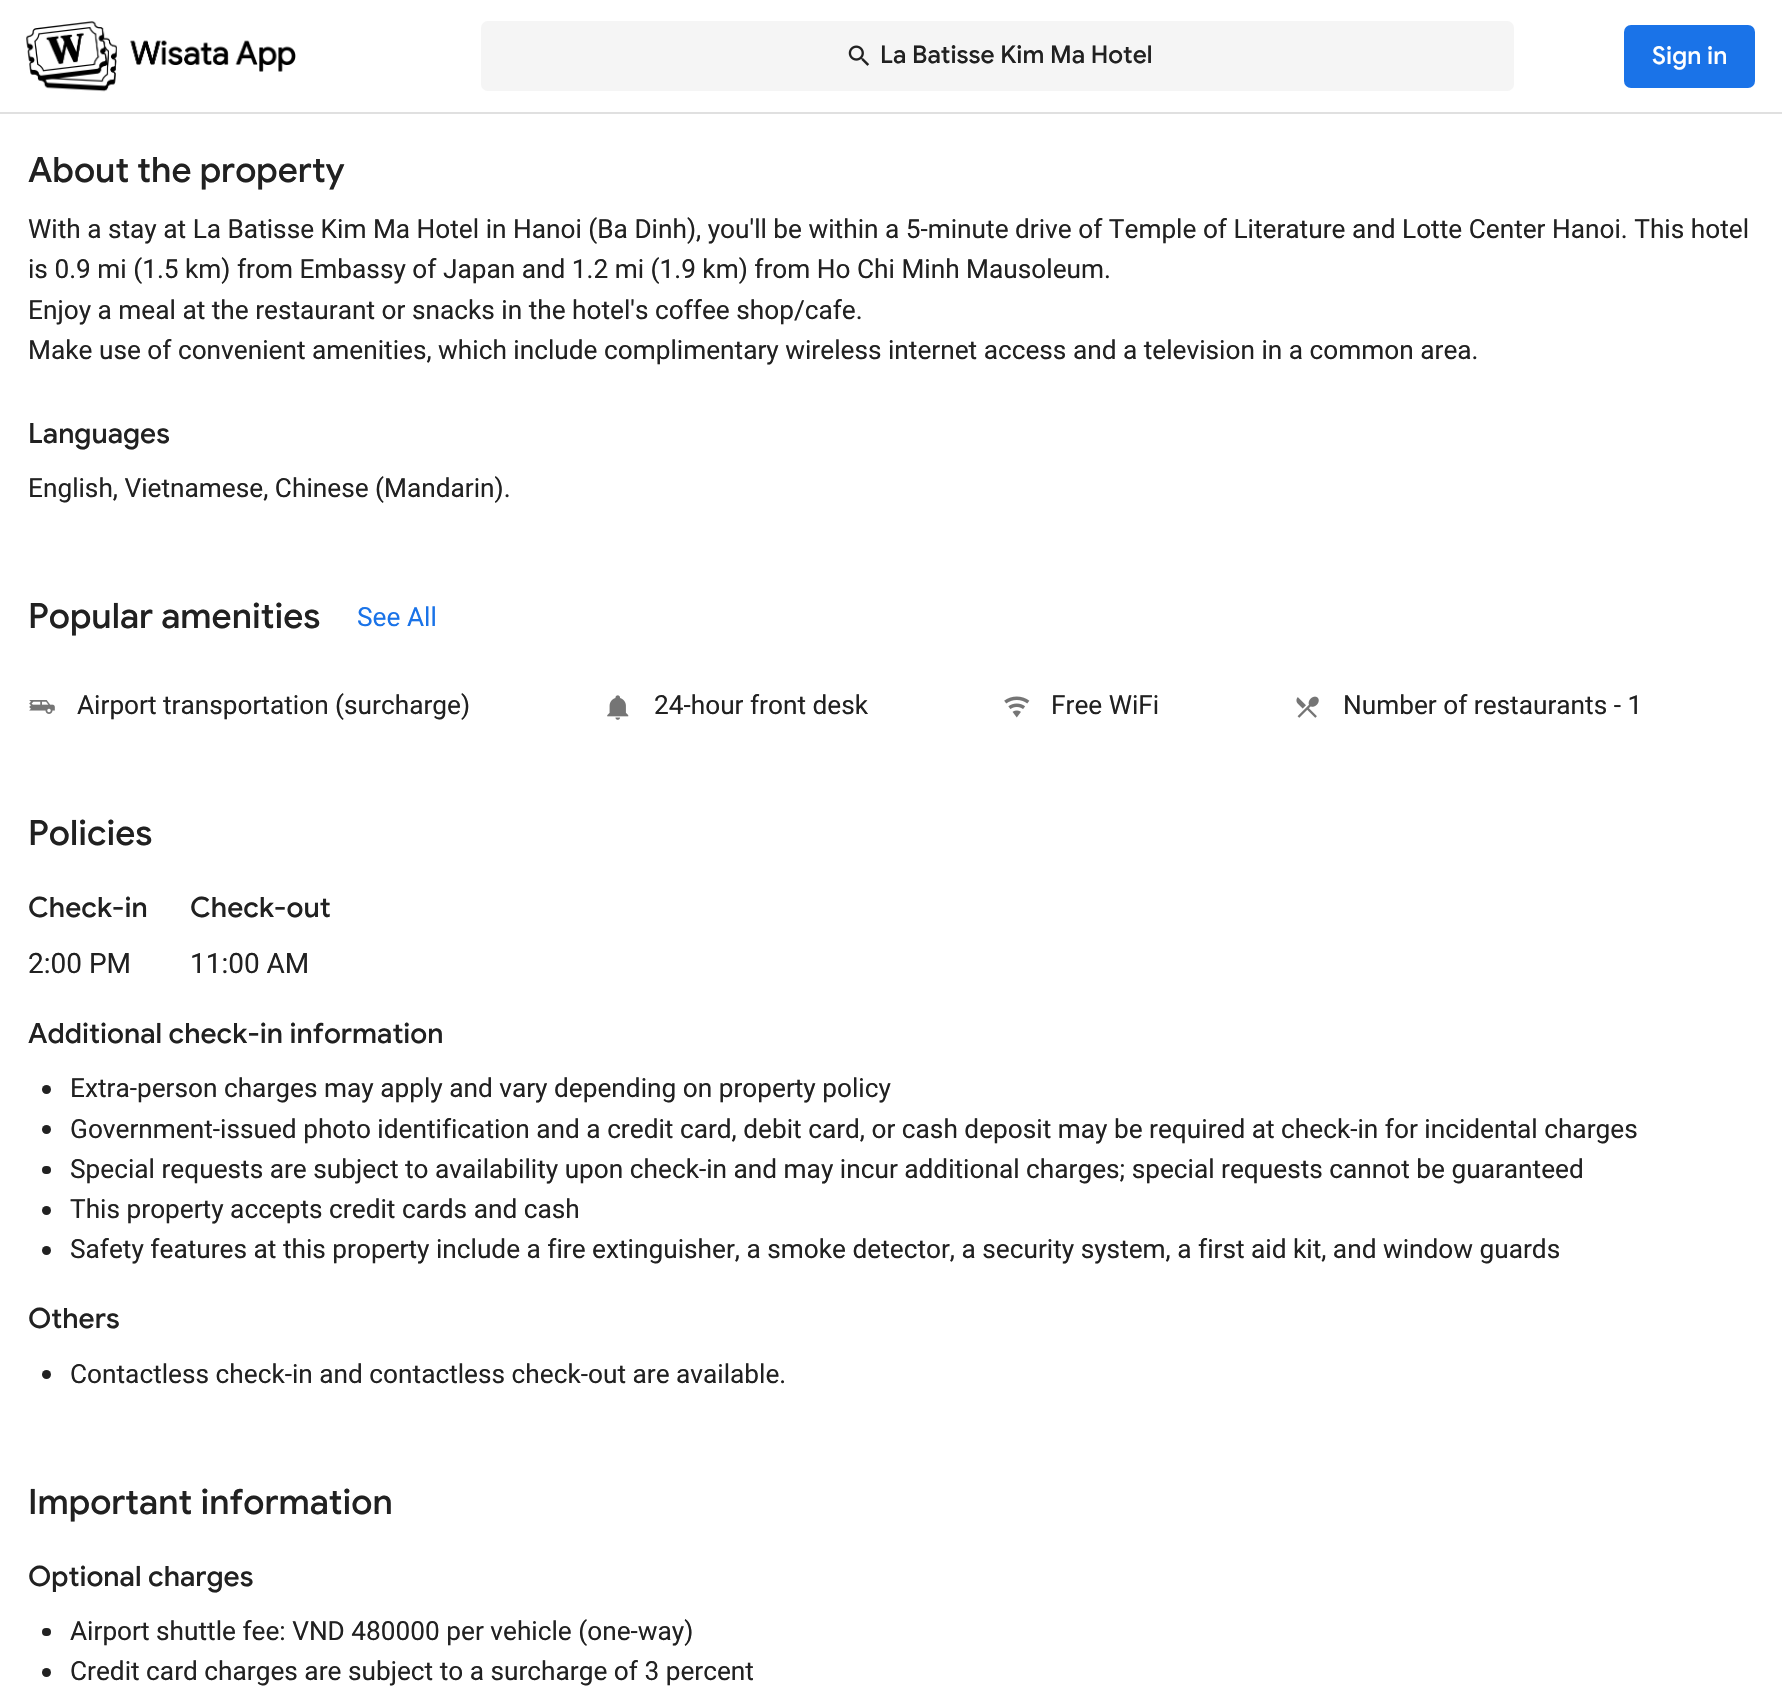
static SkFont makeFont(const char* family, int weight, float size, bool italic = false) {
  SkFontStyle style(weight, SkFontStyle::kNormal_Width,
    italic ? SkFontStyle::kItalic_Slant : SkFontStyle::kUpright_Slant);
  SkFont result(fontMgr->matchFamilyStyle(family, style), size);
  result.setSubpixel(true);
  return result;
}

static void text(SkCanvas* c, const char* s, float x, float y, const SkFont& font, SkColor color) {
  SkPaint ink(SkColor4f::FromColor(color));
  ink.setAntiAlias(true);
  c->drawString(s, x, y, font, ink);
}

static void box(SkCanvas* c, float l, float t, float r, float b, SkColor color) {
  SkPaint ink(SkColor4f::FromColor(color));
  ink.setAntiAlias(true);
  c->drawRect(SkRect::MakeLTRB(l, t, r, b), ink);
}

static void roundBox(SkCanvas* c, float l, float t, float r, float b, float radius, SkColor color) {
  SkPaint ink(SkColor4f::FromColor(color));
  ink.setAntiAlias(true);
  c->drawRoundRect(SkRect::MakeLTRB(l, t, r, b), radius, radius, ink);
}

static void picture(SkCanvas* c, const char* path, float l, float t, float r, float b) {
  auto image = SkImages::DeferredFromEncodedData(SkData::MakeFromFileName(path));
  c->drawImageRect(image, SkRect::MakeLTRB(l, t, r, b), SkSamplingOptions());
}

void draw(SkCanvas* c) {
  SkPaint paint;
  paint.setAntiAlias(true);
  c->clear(0xffffffff);
  box(c, 0, 112, 1782, 114, 0xffe0e0e0);
  picture(c, "img_01.png", 26, 21, 296, 92);
  roundBox(c, 481, 21, 1514, 91, 7, 0xfff5f5f5);
  picture(c, "img_02.png", 848, 45, 870, 66);
  SkFont face1 = makeFont("Google Sans", 500, 24.5f);
  text(c, "La Batisse Kim Ma Hotel", 880, 63, face1, 0xff212121);
  roundBox(c, 1624, 25, 1755, 88, 7, 0xff1a73e8);
  text(c, "Sign in", 1652, 64, face1, 0xffffffff);
  SkFont face2 = makeFont("Google Sans", 500, 35);
  text(c, "About the property", 28, 182, face2, 0xff212121);
  SkFont face3 = makeFont("Roboto", 400, 26.25f);
  text(c, "With a stay at La Batisse Kim Ma Hotel in Hanoi (Ba Dinh), you'll be within a 5-minute drive of Temple of Literature and Lotte Center Hanoi. This hotel", 28, 238, face3, 0xff212121);
  text(c, "is 0.9 mi (1.5 km) from Embassy of Japan and 1.2 mi (1.9 km) from Ho Chi Minh Mausoleum.", 28, 278, face3, 0xff212121);
  text(c, "Enjoy a meal at the restaurant or snacks in the hotel's coffee shop/cafe.", 28, 319, face3, 0xff212121);
  text(c, "Make use of convenient amenities, which include complimentary wireless internet access and a television in a common area.", 28, 359, face3, 0xff212121);
  SkFont face4 = makeFont("Google Sans", 500, 28);
  text(c, "Languages", 28, 443, face4, 0xff212121);
  text(c, "English, Vietnamese, Chinese (Mandarin).", 28, 497, face3, 0xff212121);
  text(c, "Popular amenities", 28, 628, face2, 0xff212121);
  text(c, "See All", 357, 626, face3, 0xff1a73e8);
  picture(c, "img_03.png", 29, 700, 55, 714);
  text(c, "Airport transportation (surcharge)", 77, 714, face3, 0xff212121);
  picture(c, "img_04.png", 607, 695, 629, 720);
  text(c, "24-hour front desk", 654, 714, face3, 0xff212121);
  picture(c, "img_05.png", 1004, 696, 1030, 718);
  text(c, "Free WiFi", 1051, 714, face3, 0xff212121);
  picture(c, "img_06.png", 1296, 696, 1319, 718);
  text(c, "Number of restaurants - 1", 1343, 714, face3, 0xff212121);
  text(c, "Policies", 28, 845, face2, 0xff212121);
  text(c, "Check-in", 28, 917, face4, 0xff212121);
  SkFont face5 = makeFont("Roboto", 400, 28);
  text(c, "2:00 PM", 28, 973, face5, 0xff212121);
  text(c, "Check-out", 190, 917, face4, 0xff212121);
  text(c, "11:00 AM", 190, 973, face5, 0xff212121);
  text(c, "Additional check-in information", 28, 1043, face4, 0xff212121);
  paint.setColor(0xff212121);
  c->drawCircle(46.5f, 1089.5f, 4.5f, paint);
  text(c, "Extra-person charges may apply and vary depending on property policy", 70, 1097, face3, 0xff212121);
  c->drawCircle(46.5f, 1129.5f, 4.5f, paint);
  text(c, "Government-issued photo identification and a credit card, debit card, or cash deposit may be required at check-in for incidental charges", 70, 1138, face3, 0xff212121);
  roundBox(c, 42, 1166, 51, 1174, 4, 0xff212121);
  text(c, "Special requests are subject to availability upon check-in and may incur additional charges; special requests cannot be guaranteed", 70, 1178, face3, 0xff212121);
  c->drawCircle(46.5f, 1210.5f, 4.5f, paint);
  text(c, "This property accepts credit cards and cash", 70, 1218, face3, 0xff212121);
  c->drawCircle(46.5f, 1250.5f, 4.5f, paint);
  text(c, "Safety features at this property include a fire extinguisher, a smoke detector, a security system, a first aid kit, and window guards", 70, 1258, face3, 0xff212121);
  text(c, "Others", 28, 1328, face4, 0xff212121);
  c->drawCircle(46.5f, 1374.5f, 4.5f, paint);
  text(c, "Contactless check-in and contactless check-out are available.", 70, 1383, face3, 0xff212121);
  text(c, "Important information", 28, 1514, face2, 0xff212121);
  text(c, "Optional charges", 28, 1586, face4, 0xff212121);
  roundBox(c, 42, 1628, 51, 1636, 4, 0xff212121);
  text(c, "Airport shuttle fee: VND 480000 per vehicle (one-way)", 70, 1640, face3, 0xff212121);
  c->drawCircle(46.5f, 1672.5f, 4.5f, paint);
  text(c, "Credit card charges are subject to a surcharge of 3 percent", 70, 1680, face3, 0xff212121);
}
